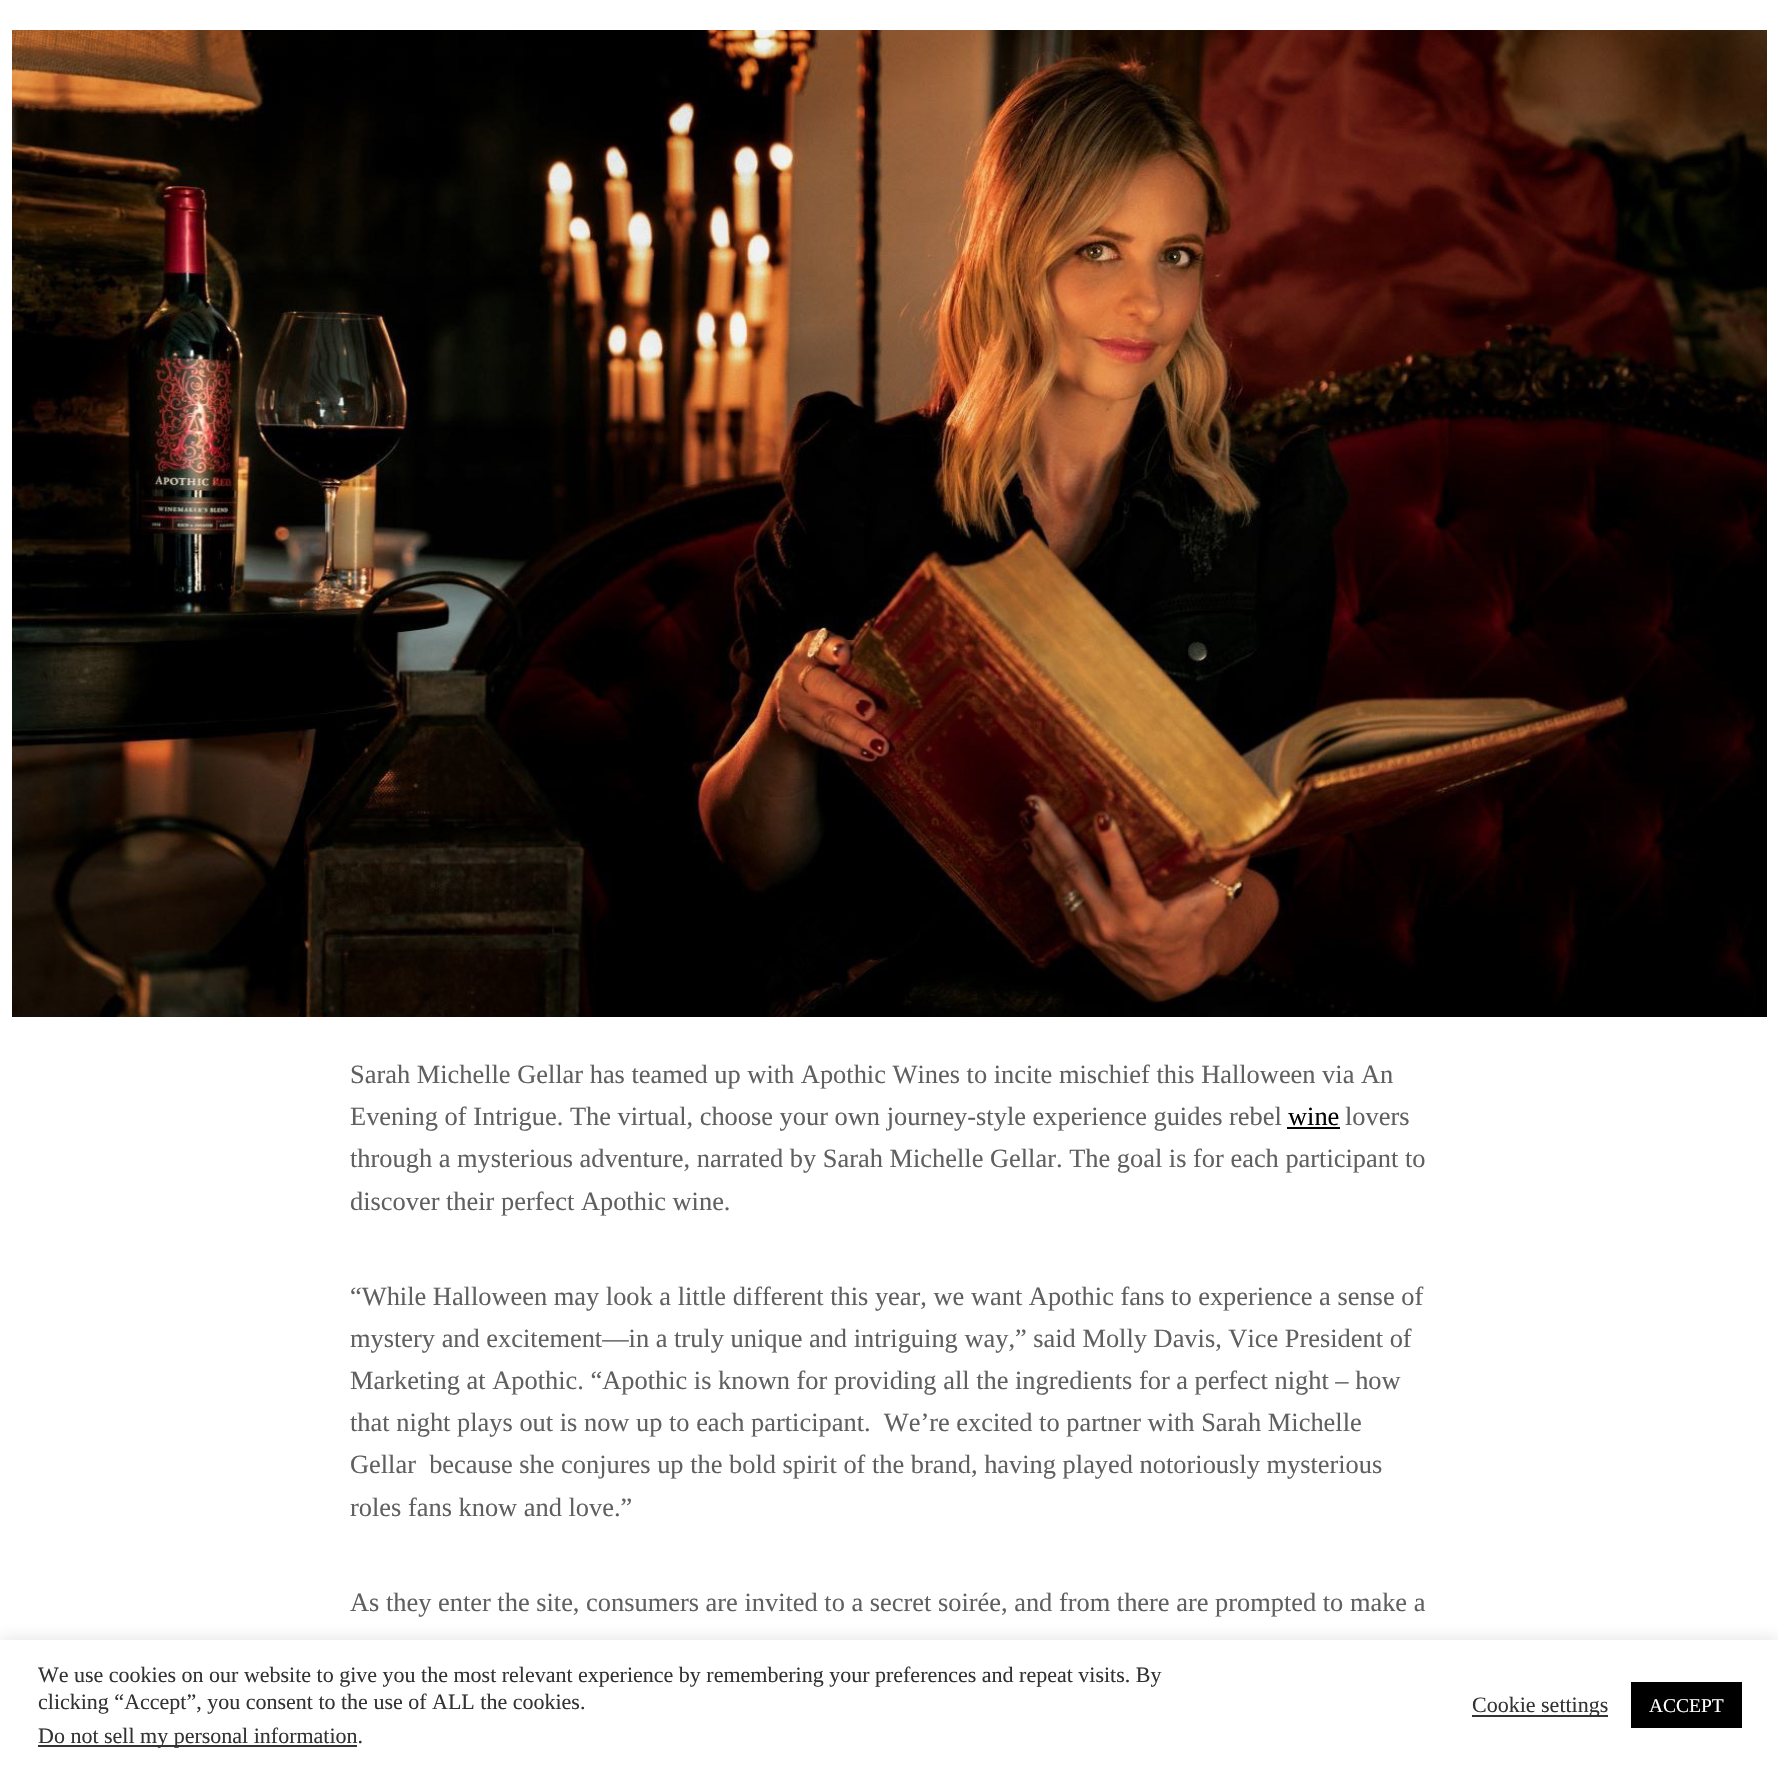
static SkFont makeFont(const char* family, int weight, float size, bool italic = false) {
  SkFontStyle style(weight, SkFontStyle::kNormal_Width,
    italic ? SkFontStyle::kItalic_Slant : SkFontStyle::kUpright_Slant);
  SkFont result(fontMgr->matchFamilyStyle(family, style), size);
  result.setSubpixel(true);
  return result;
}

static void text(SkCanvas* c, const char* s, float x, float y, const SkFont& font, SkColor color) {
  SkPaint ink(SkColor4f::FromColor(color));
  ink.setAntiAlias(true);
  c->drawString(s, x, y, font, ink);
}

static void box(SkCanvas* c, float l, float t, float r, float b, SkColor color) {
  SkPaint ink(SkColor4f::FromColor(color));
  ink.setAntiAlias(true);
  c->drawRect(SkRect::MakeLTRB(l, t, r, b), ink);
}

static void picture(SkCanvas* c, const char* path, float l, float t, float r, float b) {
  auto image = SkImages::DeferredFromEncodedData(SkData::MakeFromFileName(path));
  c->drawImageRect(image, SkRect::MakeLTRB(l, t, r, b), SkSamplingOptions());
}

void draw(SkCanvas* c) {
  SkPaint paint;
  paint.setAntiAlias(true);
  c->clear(0xffffffff);
  picture(c, "img_01.png", 12, 30, 1767, 1017);
  SkFont face1 = makeFont("Liberation Serif", 400, 26.4f);
  text(c, "Sarah Michelle Gellar has teamed up with Apothic Wines to incite mischief this Halloween via An", 350, 1083, face1, 0xff606060);
  text(c, "Evening of Intrigue. The virtual, choose your own journey-style experience guides rebel", 350, 1125, face1, 0xff606060);
  text(c, "wine", 1288, 1125, face1, 0xff020202);
  box(c, 1287, 1127, 1340, 1129, 0xff020202);
  text(c, "lovers", 1345, 1125, face1, 0xff606060);
  text(c, "through a mysterious adventure, narrated by Sarah Michelle Gellar. The goal is for each participant to", 350, 1167, face1, 0xff606060);
  text(c, "discover their perfect Apothic wine.", 350, 1210, face1, 0xff606060);
  text(c, "“While Halloween may look a little different this year, we want Apothic fans to experience a sense of", 350, 1305, face1, 0xff606060);
  text(c, "mystery and excitement—in a truly unique and intriguing way,” said Molly Davis, Vice President of", 350, 1347, face1, 0xff606060);
  text(c, "Marketing at Apothic. “Apothic is known for providing all the ingredients for a perfect night – how", 350, 1389, face1, 0xff606060);
  text(c, "that night plays out is now up to each participant.  We’re excited to partner with Sarah Michelle", 350, 1431, face1, 0xff606060);
  text(c, "Gellar  because she conjures up the bold spirit of the brand, having played notoriously mysterious", 350, 1473, face1, 0xff606060);
  text(c, "roles fans know and love.”", 350, 1516, face1, 0xff606060);
  text(c, "As they enter the site, consumers are invited to a secret soirée, and from there are prompted to make a", 350, 1611, face1, 0xff606060);
  paint.setColor(0x4dacabab);
  paint.setMaskFilter(SkMaskFilter::MakeBlur(kNormal_SkBlurStyle, 7.5f));
  c->drawRect(SkRect::MakeLTRB(0, 1638, 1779, 1769), paint);
  paint.setMaskFilter(nullptr);
  box(c, 0, 1640, 1778, 1769, 0xffffffff);
  SkFont face2 = makeFont("Liberation Serif", 400, 22);
  text(c, "We use cookies on our website to give you the most relevant experience by remembering your preferences and repeat visits. By", 38, 1682, face2, 0xff333333);
  text(c, "clicking “Accept”, you consent to the use of ALL the cookies.", 38, 1709, face2, 0xff333333);
  box(c, 38, 1745, 357, 1747, 0xff333333);
  text(c, "Do not sell my personal information.", 38, 1743, face2, 0xff333333);
  box(c, 1472, 1715, 1608, 1717, 0xff333333);
  text(c, "Cookie settings", 1472, 1712, face2, 0xff333333);
  box(c, 1631, 1682, 1742, 1728, 0xff000000);
  SkFont face3 = makeFont("Liberation Serif", 400, 19.5f);
  text(c, "ACCEPT", 1649, 1712, face3, 0xffffffff);
}
